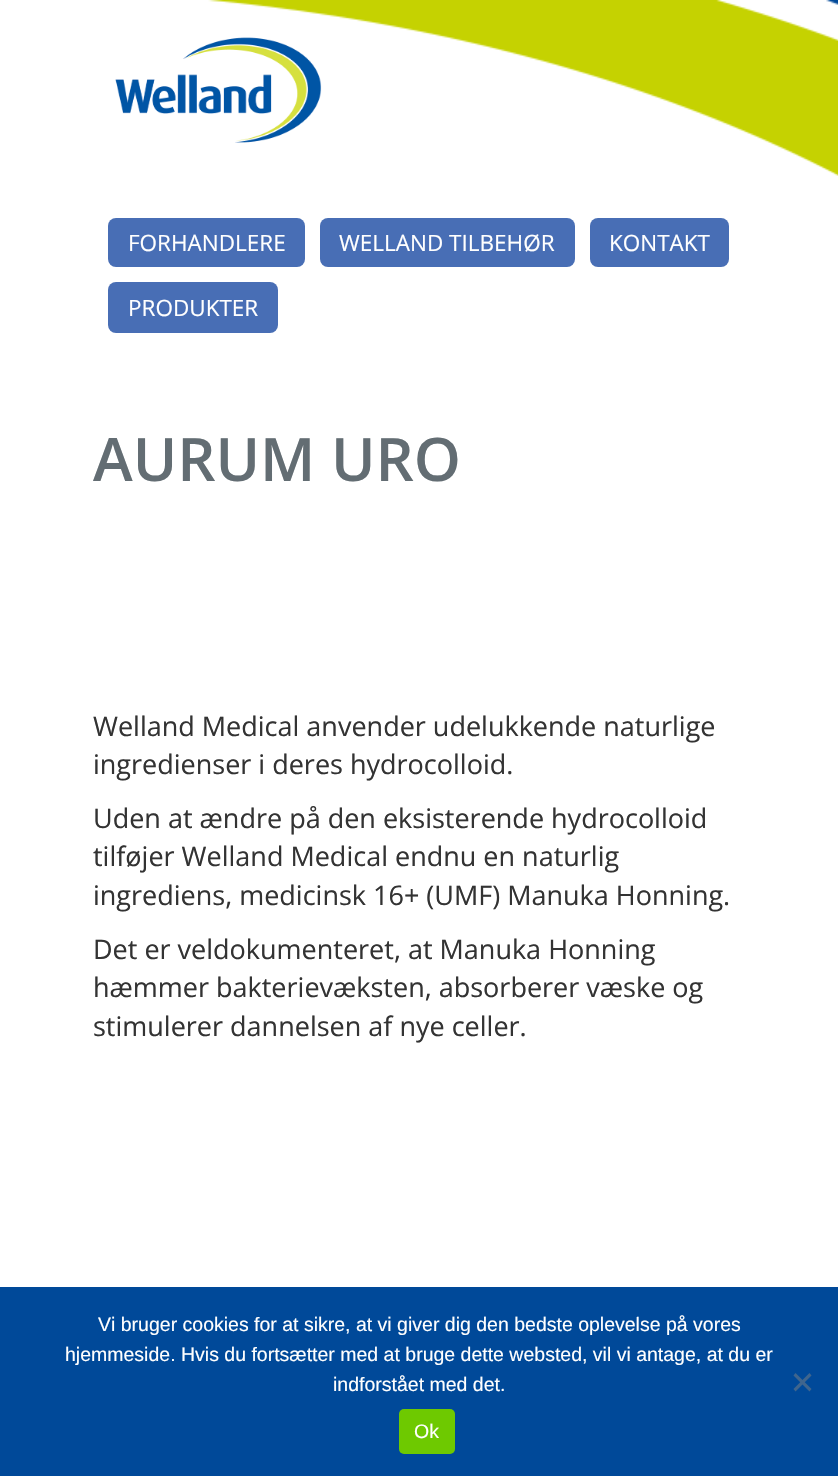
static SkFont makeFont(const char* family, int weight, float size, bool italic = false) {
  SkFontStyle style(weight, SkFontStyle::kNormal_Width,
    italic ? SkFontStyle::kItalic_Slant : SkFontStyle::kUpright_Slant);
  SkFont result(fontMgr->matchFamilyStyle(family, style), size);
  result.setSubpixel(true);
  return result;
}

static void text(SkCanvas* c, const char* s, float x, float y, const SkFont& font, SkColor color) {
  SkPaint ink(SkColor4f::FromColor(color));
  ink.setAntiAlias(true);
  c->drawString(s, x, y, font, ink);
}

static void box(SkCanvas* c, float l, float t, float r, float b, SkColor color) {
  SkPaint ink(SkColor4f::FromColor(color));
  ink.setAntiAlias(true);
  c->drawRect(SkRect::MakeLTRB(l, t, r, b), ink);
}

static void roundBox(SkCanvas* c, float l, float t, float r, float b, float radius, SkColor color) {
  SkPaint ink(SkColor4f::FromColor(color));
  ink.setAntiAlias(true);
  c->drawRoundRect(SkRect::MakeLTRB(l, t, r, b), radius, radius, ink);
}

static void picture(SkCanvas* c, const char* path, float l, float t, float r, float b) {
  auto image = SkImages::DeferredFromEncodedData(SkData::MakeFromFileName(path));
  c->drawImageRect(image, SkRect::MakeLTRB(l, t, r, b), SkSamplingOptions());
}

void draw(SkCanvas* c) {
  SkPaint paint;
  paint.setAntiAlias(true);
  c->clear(0xffffffff);
  picture(c, "img_01.png", 208, 0, 838, 176);
  picture(c, "img_02.png", 115, 37, 322, 143);
  roundBox(c, 108, 218, 305, 267, 8, 0xff486eb5);
  SkFont face1 = makeFont("Open Sans", 400, 22.5f);
  text(c, "FORHANDLERE", 128, 251, face1, 0xffffffff);
  roundBox(c, 320, 218, 575, 267, 8, 0xff486eb5);
  text(c, "WELLAND TILBEHØR", 339, 251, face1, 0xffffffff);
  roundBox(c, 590, 218, 729, 267, 8, 0xff486eb5);
  text(c, "KONTAKT", 609, 251, face1, 0xffffffff);
  roundBox(c, 108, 282, 278, 333, 8, 0xff486eb5);
  text(c, "PRODUKTER", 128, 316, face1, 0xffffffff);
  SkFont face2 = makeFont("Open Sans", 600, 60);
  text(c, "AURUM URO", 93, 481, face2, 0xff636d73);
  SkFont face3 = makeFont("Open Sans", 400, 27);
  text(c, "Welland Medical anvender udelukkende naturlige", 93, 736, face3, 0xff333333);
  text(c, "ingredienser i deres hydrocolloid.", 93, 774, face3, 0xff333333);
  text(c, "Uden at ændre på den eksisterende hydrocolloid", 93, 828, face3, 0xff333333);
  text(c, "tilføjer Welland Medical endnu en naturlig", 93, 866, face3, 0xff333333);
  text(c, "ingrediens, medicinsk 16+ (UMF) Manuka Honning.", 93, 905, face3, 0xff333333);
  text(c, "Det er veldokumenteret, at Manuka Honning", 93, 959, face3, 0xff333333);
  text(c, "hæmmer bakterievæksten, absorberer væske og", 93, 997, face3, 0xff333333);
  text(c, "stimulerer dannelsen af nye celler.", 93, 1036, face3, 0xff333333);
  box(c, 0, 1287, 838, 1476, 0xff004999);
  SkFont face4 = makeFont("Liberation Sans", 400, 19.5f);
  text(c, "Vi bruger cookies for at sikre, at vi giver dig den bedste oplevelse på vores", 98, 1331, face4, 0xffffffff);
  text(c, "hjemmeside. Hvis du fortsætter med at bruge dette websted, vil vi antage, at du er", 65, 1361, face4, 0xffffffff);
  text(c, "indforstået med det.", 333, 1391, face4, 0xffffffff);
  paint.setColor(0xff40658d);
  c->drawPath(SkPathBuilder().moveTo(809.5f, 1373).lineTo(811.5f, 1375.5f).lineTo(795.5f, 1391.5f).lineTo(793.5f, 1389).close().detach(), paint);
  c->drawPath(SkPathBuilder().moveTo(793.5f, 1375.5f).lineTo(795.5f, 1373).lineTo(811.5f, 1389).lineTo(809.5f, 1391.5f).close().detach(), paint);
  roundBox(c, 399, 1409, 455, 1454, 5, 0xff6ec900);
  text(c, "Ok", 414, 1438, face4, 0xffffffff);
}
